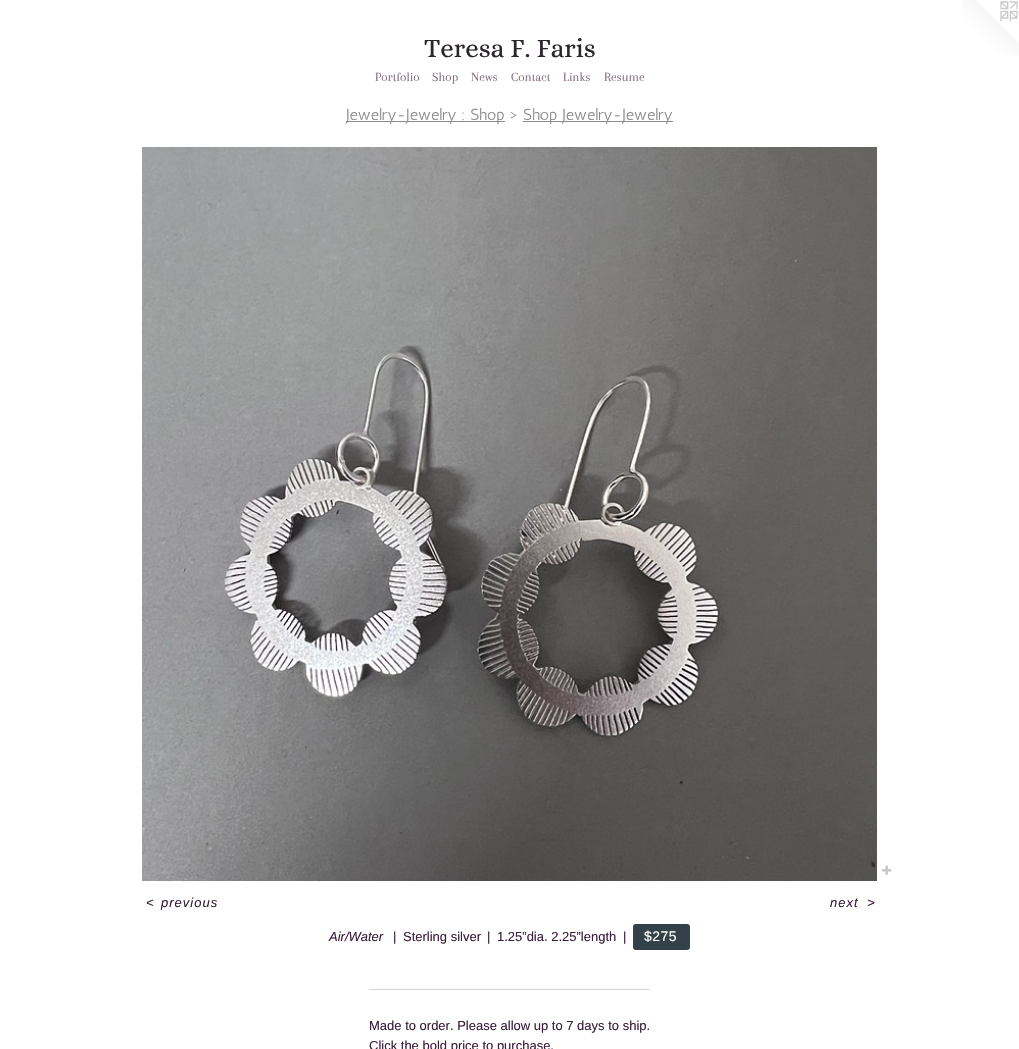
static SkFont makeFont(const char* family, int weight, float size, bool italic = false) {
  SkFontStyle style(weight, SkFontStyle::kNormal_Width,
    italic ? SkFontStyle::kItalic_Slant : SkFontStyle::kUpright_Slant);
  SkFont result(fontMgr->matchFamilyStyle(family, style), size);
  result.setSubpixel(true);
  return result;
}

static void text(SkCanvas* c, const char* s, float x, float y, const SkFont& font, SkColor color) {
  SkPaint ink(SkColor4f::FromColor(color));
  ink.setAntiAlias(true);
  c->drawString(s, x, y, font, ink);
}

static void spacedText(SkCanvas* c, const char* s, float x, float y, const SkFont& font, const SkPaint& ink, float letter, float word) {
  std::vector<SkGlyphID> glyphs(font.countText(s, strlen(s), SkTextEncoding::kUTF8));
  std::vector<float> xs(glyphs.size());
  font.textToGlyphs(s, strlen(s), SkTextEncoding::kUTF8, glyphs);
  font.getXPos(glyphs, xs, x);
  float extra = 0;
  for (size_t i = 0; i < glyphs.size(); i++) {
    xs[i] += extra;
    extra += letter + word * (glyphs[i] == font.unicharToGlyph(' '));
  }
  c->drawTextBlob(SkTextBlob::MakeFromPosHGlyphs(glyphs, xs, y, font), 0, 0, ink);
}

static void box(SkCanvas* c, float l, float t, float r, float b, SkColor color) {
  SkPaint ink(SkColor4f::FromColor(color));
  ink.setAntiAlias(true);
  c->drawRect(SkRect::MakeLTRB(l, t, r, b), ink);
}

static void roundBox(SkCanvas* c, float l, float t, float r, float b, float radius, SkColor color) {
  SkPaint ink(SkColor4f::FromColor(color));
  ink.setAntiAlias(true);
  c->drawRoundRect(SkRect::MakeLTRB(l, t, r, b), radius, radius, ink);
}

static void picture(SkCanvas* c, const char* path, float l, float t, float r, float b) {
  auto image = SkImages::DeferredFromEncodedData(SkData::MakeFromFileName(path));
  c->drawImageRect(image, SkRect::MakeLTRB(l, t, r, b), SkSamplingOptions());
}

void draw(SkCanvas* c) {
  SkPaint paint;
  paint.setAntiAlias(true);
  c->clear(0xffffffff);
  SkFont face1 = makeFont("Alice", 400, 27);
  text(c, "Teresa F. Faris", 424, 57, face1, 0xff2c262c);
  picture(c, "img_01.png", 963, 0, 1019, 56);
  SkFont face2 = makeFont("Arapey", 400, 13);
  text(c, "Portfolio", 375, 81, face2, 0xff836d7f);
  text(c, "Shop", 432, 81, face2, 0xff836d7f);
  text(c, "News", 471, 81, face2, 0xff836d7f);
  text(c, "Contact", 511, 81, face2, 0xff836d7f);
  text(c, "Links", 563, 81, face2, 0xff836d7f);
  text(c, "Resume", 604, 81, face2, 0xff836d7f);
  box(c, 346, 121, 505, 122, 0xff8c8c8c);
  SkFont face3 = makeFont("Antic", 400, 16);
  text(c, "Jewelry-Jewelry : Shop >", 346, 120, face3, 0xff8c8c8c);
  box(c, 523, 121, 673, 122, 0xff8c8c8c);
  text(c, "Shop Jewelry-Jewelry", 523, 120, face3, 0xff8c8c8c);
  picture(c, "img_02.png", 142, 147, 877, 881);
  picture(c, "img_03.png", 882, 865, 892, 875);
  SkFont face4 = makeFont("Liberation Sans", 400, 13, true);
  paint.setColor(0xff381e38);
  spacedText(c, "<", 146, 907, face4, paint, 1, 0);
  spacedText(c, "previous", 161, 907, face4, paint, 1, 0);
  spacedText(c, "next", 830, 907, face4, paint, 1, 0);
  spacedText(c, ">", 867, 907, face4, paint, 1, 0);
  text(c, "Air/Water", 329, 941, face4, 0xff381e38);
  SkFont face5 = makeFont("Liberation Sans", 400, 13);
  text(c, "|", 393, 941, face5, 0xff381e38);
  text(c, "Sterling silver", 403, 941, face5, 0xff381e38);
  text(c, "|", 487, 941, face5, 0xff381e38);
  text(c, "1.25”dia. 2.25”length", 497, 941, face5, 0xff381e38);
  text(c, "|", 623, 941, face5, 0xff381e38);
  roundBox(c, 633, 924, 690, 950, 3, 0xff324248);
  SkFont face6 = makeFont("Liberation Sans", 400, 14);
  paint.setColor(0xffffffff);
  spacedText(c, "$275", 644, 941, face6, paint, 0.5f, 0);
  box(c, 369, 989, 650, 990, 0xffd7d2d7);
  text(c, "Made to order. Please allow up to 7 days to ship.", 369, 1030, face5, 0xff381e38);
  text(c, "Click the bold price to purchase.", 369, 1050, face5, 0xff381e38);
}
